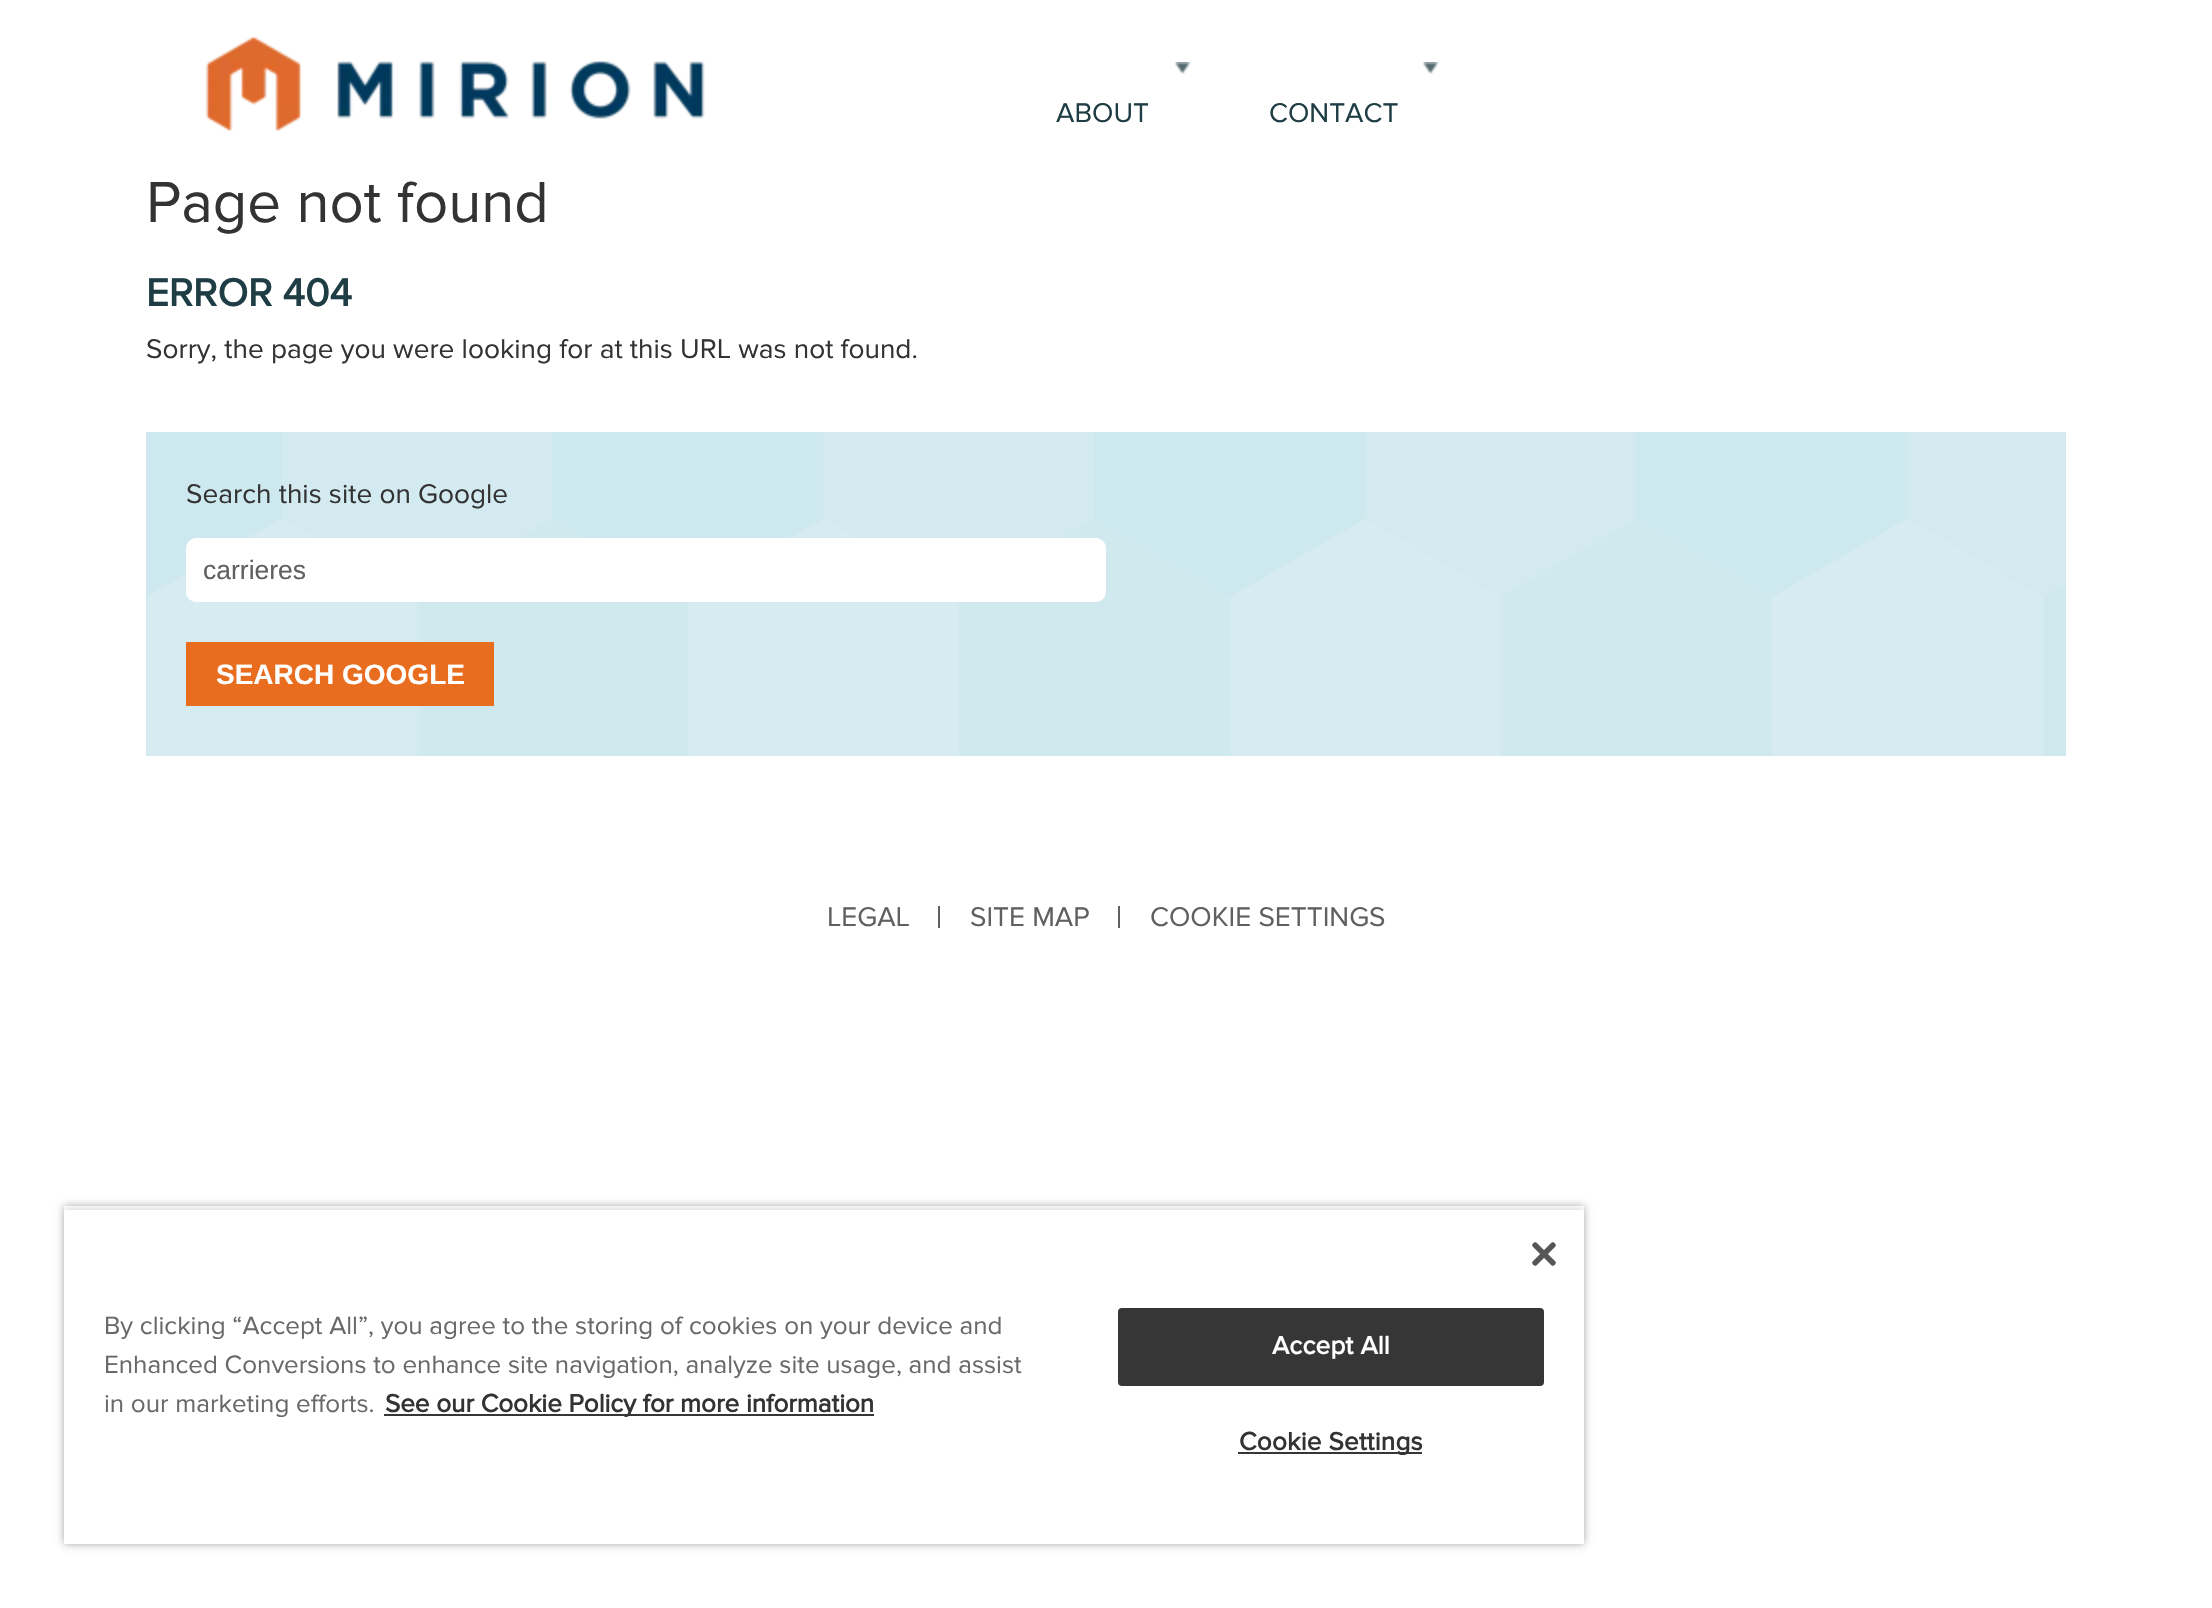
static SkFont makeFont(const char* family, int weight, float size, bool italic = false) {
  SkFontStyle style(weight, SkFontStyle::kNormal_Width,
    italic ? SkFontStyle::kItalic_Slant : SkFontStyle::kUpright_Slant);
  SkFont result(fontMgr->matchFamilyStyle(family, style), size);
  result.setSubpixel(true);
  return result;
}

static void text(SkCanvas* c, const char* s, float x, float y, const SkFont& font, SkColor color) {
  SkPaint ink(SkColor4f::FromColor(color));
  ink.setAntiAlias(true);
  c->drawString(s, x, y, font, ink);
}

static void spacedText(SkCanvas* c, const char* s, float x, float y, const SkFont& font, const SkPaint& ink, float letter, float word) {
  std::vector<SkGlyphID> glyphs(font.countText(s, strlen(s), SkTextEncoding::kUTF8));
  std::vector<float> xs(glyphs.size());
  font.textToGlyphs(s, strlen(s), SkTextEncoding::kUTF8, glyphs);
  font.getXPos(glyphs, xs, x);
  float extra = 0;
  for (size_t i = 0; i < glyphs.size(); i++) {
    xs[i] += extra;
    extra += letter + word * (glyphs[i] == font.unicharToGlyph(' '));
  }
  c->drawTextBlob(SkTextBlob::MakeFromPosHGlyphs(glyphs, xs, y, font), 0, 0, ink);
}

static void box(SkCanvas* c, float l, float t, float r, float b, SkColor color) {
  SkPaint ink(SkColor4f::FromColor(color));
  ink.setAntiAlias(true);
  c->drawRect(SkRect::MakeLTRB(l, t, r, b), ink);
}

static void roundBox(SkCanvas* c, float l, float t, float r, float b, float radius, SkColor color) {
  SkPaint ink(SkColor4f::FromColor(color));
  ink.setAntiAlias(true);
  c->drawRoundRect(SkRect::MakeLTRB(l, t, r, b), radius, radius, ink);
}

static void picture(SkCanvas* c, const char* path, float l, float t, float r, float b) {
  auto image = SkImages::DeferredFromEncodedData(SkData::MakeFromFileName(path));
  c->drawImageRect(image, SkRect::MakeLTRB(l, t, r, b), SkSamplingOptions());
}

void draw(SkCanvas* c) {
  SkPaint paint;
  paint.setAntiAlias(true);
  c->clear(0xffffffff);
  picture(c, "img_01.png", 205, 36, 705, 132);
  picture(c, "img_02.png", 1174, 62, 1190, 74);
  SkFont face1 = makeFont("Proxima Nova", 400, 28);
  text(c, "ABOUT", 1056, 122, face1, 0xff1f3d44);
  picture(c, "img_02.png", 1422, 62, 1438, 74);
  text(c, "CONTACT", 1269, 122, face1, 0xff1f3d44);
  SkFont face2 = makeFont("Proxima Nova", 400, 60);
  text(c, "Page not found", 146, 222, face2, 0xff333333);
  SkFont face3 = makeFont("Proxima Nova", 700, 40);
  text(c, "ERROR 404", 146, 306, face3, 0xff1f3d44);
  text(c, "Sorry, the page you were looking for at this URL was not found.", 146, 358, face1, 0xff333333);
  picture(c, "img_03.png", 146, 432, 2066, 756);
  text(c, "Search this site on Google", 186, 503, face1, 0xff333333);
  roundBox(c, 186, 538, 1106, 602, 10, 0xffffffff);
  SkFont face4 = makeFont("Liberation Sans", 400, 26.5f);
  text(c, "carrieres", 203, 579, face4, 0xff5f6062);
  box(c, 186, 642, 494, 706, 0xffe96d1f);
  SkFont face5 = makeFont("Liberation Sans", 700, 28);
  text(c, "SEARCH GOOGLE", 216, 684, face5, 0xffffffff);
  text(c, "LEGAL", 827, 926, face1, 0xff5f6062);
  box(c, 938, 906, 940, 928, 0xff606060);
  text(c, "SITE MAP", 970, 926, face1, 0xff5f6062);
  box(c, 1118, 906, 1120, 928, 0xff606060);
  text(c, "COOKIE SETTINGS", 1150, 926, face1, 0xff5f6062);
  c->save();
  c->clipPath(SkPathBuilder(SkPathFillType::kEvenOdd).moveTo(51, 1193).lineTo(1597, 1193).lineTo(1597, 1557).lineTo(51, 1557).close().moveTo(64, 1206).lineTo(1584, 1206).lineTo(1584, 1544).lineTo(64, 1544).close().detach(), true);
  paint.setColor(0x59000000);
  paint.setMaskFilter(SkMaskFilter::MakeBlur(kNormal_SkBlurStyle, 4));
  c->drawRect(SkRect::MakeLTRB(64, 1206, 1584, 1544), paint);
  paint.setMaskFilter(nullptr);
  c->restore();
  c->save();
  c->clipRect(SkRect::MakeLTRB(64, 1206, 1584, 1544));
  c->clipRect(SkRect::MakeLTRB(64, 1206, 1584, 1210));
  paint.setColor(0x33000000);
  paint.setMaskFilter(SkMaskFilter::MakeBlur(kNormal_SkBlurStyle, 4));
  c->drawRect(SkRect::MakeLTRB(64, 1210, 1584, 1544), paint);
  paint.setMaskFilter(nullptr);
  c->restore();
  picture(c, "img_04.png", 1532, 1242, 1556, 1266);
  SkFont face6 = makeFont("Proxima Nova", 400, 26);
  text(c, "By clicking “Accept All”, you agree to the storing of cookies on your device and", 104, 1334, face6, 0xff696969);
  text(c, "Enhanced Conversions to enhance site navigation, analyze site usage, and assist", 104, 1373, face6, 0xff696969);
  text(c, "in our marketing efforts.", 104, 1412, face6, 0xff696969);
  box(c, 384, 1414, 874, 1416, 0xff373637);
  SkFont face7 = makeFont("Proxima Nova", 700, 26);
  text(c, "See our Cookie Policy for more information", 385, 1412, face7, 0xff333333);
  paint.setColor(0xff373637);
  c->drawRoundRect(SkRect::MakeLTRB(1119, 1309, 1543, 1385), 3, 3, paint);
  paint.setStyle(SkPaint::kStroke_Style);
  paint.setStrokeWidth(2);
  c->drawRoundRect(SkRect::MakeLTRB(1119, 1309, 1543, 1385), 3, 3, paint);
  paint.setStyle(SkPaint::kFill_Style);
  paint.setColor(0xffffffff);
  spacedText(c, "Accept All", 1272, 1354, face7, paint, 0.25f, 0);
  box(c, 1238, 1452, 1422, 1454, 0xff373637);
  paint.setColor(0xff333333);
  spacedText(c, "Cookie Settings", 1239, 1450, face7, paint, 0.25f, 0);
}
